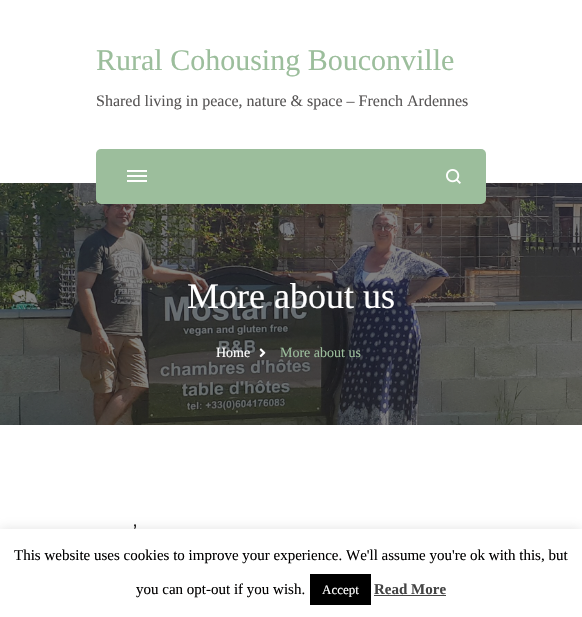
static SkFont makeFont(const char* family, int weight, float size, bool italic = false) {
  SkFontStyle style(weight, SkFontStyle::kNormal_Width,
    italic ? SkFontStyle::kItalic_Slant : SkFontStyle::kUpright_Slant);
  SkFont result(fontMgr->matchFamilyStyle(family, style), size);
  result.setSubpixel(true);
  return result;
}

static void text(SkCanvas* c, const char* s, float x, float y, const SkFont& font, SkColor color) {
  SkPaint ink(SkColor4f::FromColor(color));
  ink.setAntiAlias(true);
  c->drawString(s, x, y, font, ink);
}

static void box(SkCanvas* c, float l, float t, float r, float b, SkColor color) {
  SkPaint ink(SkColor4f::FromColor(color));
  ink.setAntiAlias(true);
  c->drawRect(SkRect::MakeLTRB(l, t, r, b), ink);
}

static void roundBox(SkCanvas* c, float l, float t, float r, float b, float radius, SkColor color) {
  SkPaint ink(SkColor4f::FromColor(color));
  ink.setAntiAlias(true);
  c->drawRoundRect(SkRect::MakeLTRB(l, t, r, b), radius, radius, ink);
}

static void picture(SkCanvas* c, const char* path, float l, float t, float r, float b) {
  auto image = SkImages::DeferredFromEncodedData(SkData::MakeFromFileName(path));
  c->drawImageRect(image, SkRect::MakeLTRB(l, t, r, b), SkSamplingOptions());
}

void draw(SkCanvas* c) {
  SkPaint paint;
  paint.setAntiAlias(true);
  c->clear(0xffffffff);
  SkFont face1 = makeFont("Liberation Serif", 400, 30);
  text(c, "Rural Cohousing Bouconville", 96, 70, face1, 0xff9cbe9c);
  SkFont face2 = makeFont("Liberation Serif", 400, 16);
  text(c, "Shared living in peace, nature & space – French Ardennes", 96, 106, face2, 0xff585656);
  picture(c, "img_02.png", 0, 183, 582, 425);
  roundBox(c, 96, 149, 486, 204, 5, 0xff9cbe9c);
  box(c, 127, 170, 147, 172, 0xffffffff);
  box(c, 127, 175, 147, 177, 0xffffffff);
  box(c, 127, 180, 147, 182, 0xffffffff);
  picture(c, "img_01.png", 446, 169, 461, 184);
  SkFont face3 = makeFont("Liberation Serif", 400, 36);
  text(c, "More about us", 187, 308, face3, 0xffffffff);
  SkFont face4 = makeFont("Liberation Serif", 400, 14);
  text(c, "Home", 216, 357, face4, 0xffffffff);
  picture(c, "img_03.png", 259, 348, 266, 358);
  text(c, "More about us", 280, 357, face4, 0xff9cbe9c);
  SkFont face5 = makeFont("Liberation Sans", 400, 18);
  text(c, "’", 133, 537, face5, 0xff020101);
  paint.setColor(0x4dacabab);
  paint.setMaskFilter(SkMaskFilter::MakeBlur(kNormal_SkBlurStyle, 5));
  c->drawRect(SkRect::MakeLTRB(0, 528, 582, 616), paint);
  paint.setMaskFilter(nullptr);
  box(c, 0, 529, 582, 617, 0xffffffff);
  SkFont face6 = makeFont("Liberation Serif", 400, 15);
  text(c, "This website uses cookies to improve your experience. We'll assume you're ok with this, but", 14, 560, face6, 0xff020101);
  text(c, "you can opt-out if you wish.", 136, 594, face6, 0xff020101);
  box(c, 310, 574, 371, 605, 0xff000000);
  SkFont face7 = makeFont("Liberation Serif", 400, 13);
  text(c, "Accept", 322, 594, face7, 0xffffffff);
  SkFont face8 = makeFont("Liberation Serif", 700, 15);
  text(c, "Read More", 374, 594, face8, 0xff444444);
  box(c, 374, 595, 446, 596, 0xff444444);
}
